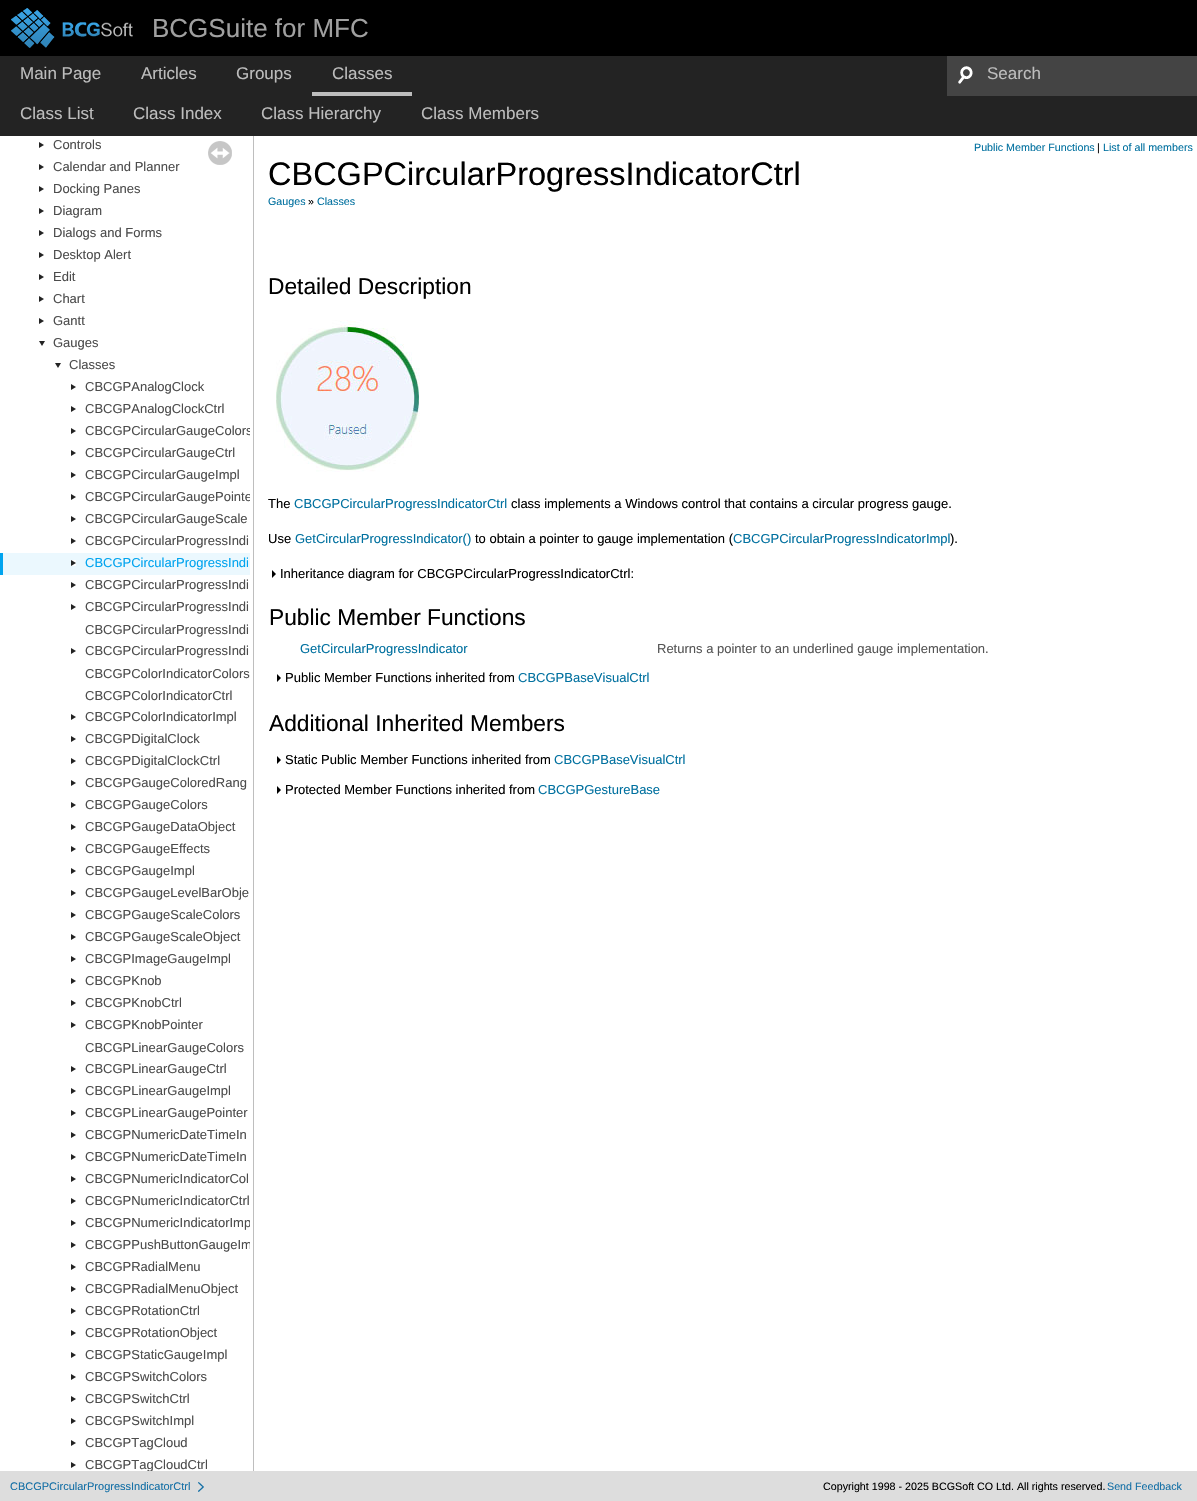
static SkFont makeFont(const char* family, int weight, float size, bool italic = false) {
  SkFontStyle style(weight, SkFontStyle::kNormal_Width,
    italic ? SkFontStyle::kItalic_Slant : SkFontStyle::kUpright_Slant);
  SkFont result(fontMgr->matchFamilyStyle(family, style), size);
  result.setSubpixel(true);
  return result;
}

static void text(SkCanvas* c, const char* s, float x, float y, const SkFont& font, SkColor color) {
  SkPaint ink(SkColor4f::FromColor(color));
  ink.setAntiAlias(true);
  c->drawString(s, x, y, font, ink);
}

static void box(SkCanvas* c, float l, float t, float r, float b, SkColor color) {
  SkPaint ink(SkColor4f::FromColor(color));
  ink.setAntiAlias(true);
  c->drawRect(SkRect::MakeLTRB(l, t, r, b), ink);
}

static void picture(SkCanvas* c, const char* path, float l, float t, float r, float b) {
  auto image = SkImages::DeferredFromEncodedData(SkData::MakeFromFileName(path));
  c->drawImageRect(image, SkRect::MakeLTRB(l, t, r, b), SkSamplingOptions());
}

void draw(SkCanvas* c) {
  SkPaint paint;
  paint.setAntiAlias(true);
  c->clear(0xffffffff);
  box(c, 0, 0, 1197, 56, 0xff000000);
  picture(c, "img_01.png", 11, 8, 133, 48);
  SkFont face1 = makeFont("Liberation Sans", 400, 26);
  text(c, "BCGSuite for MFC", 152, 37, face1, 0xffa0a0a0);
  box(c, 0, 56, 947, 96, 0xff232323);
  SkFont face2 = makeFont("Liberation Sans", 400, 17);
  text(c, "Main Page", 20, 79, face2, 0xffbdbdbd);
  text(c, "Articles", 141, 79, face2, 0xffbdbdbd);
  text(c, "Groups", 236, 79, face2, 0xffbdbdbd);
  box(c, 312, 92, 412, 96, 0xffbdbdbd);
  text(c, "Classes", 332, 79, face2, 0xffbdbdbd);
  box(c, 947, 56, 1197, 96, 0xff444444);
  picture(c, "img_02.png", 958, 66, 973, 84);
  text(c, "Search", 987, 79, face2, 0xffbdbdbd);
  box(c, 0, 96, 1197, 136, 0xff232323);
  text(c, "Class List", 20, 119, face2, 0xffbdbdbd);
  text(c, "Class Index", 133, 119, face2, 0xffbdbdbd);
  text(c, "Class Hierarchy", 261, 119, face2, 0xffbdbdbd);
  text(c, "Class Members", 421, 119, face2, 0xffbdbdbd);
  picture(c, "img_03.png", 39, 142, 44, 148);
  SkFont face3 = makeFont("Liberation Sans", 400, 13);
  text(c, "Controls", 53, 149, face3, 0xff4c4c4c);
  picture(c, "img_03.png", 39, 164, 44, 170);
  text(c, "Calendar and Planner", 53, 171, face3, 0xff4c4c4c);
  picture(c, "img_03.png", 39, 186, 44, 192);
  text(c, "Docking Panes", 53, 193, face3, 0xff4c4c4c);
  picture(c, "img_03.png", 39, 208, 44, 214);
  text(c, "Diagram", 53, 215, face3, 0xff4c4c4c);
  picture(c, "img_03.png", 39, 230, 44, 236);
  text(c, "Dialogs and Forms", 53, 237, face3, 0xff4c4c4c);
  picture(c, "img_03.png", 39, 252, 44, 258);
  text(c, "Desktop Alert", 53, 259, face3, 0xff4c4c4c);
  picture(c, "img_03.png", 39, 274, 44, 280);
  text(c, "Edit", 53, 281, face3, 0xff4c4c4c);
  picture(c, "img_03.png", 39, 296, 44, 302);
  text(c, "Chart", 53, 303, face3, 0xff4c4c4c);
  picture(c, "img_03.png", 39, 318, 44, 324);
  text(c, "Gantt", 53, 325, face3, 0xff4c4c4c);
  picture(c, "img_04.png", 39, 341, 45, 346);
  text(c, "Gauges", 53, 347, face3, 0xff4c4c4c);
  picture(c, "img_04.png", 55, 363, 61, 368);
  text(c, "Classes", 69, 369, face3, 0xff4c4c4c);
  picture(c, "img_03.png", 71, 384, 76, 390);
  text(c, "CBCGPAnalogClock", 85, 391, face3, 0xff4c4c4c);
  picture(c, "img_03.png", 71, 406, 76, 412);
  text(c, "CBCGPAnalogClockCtrl", 85, 413, face3, 0xff4c4c4c);
  picture(c, "img_03.png", 71, 428, 76, 434);
  c->save();
  c->clipRect(SkRect::MakeLTRB(0, 136, 250, 1471));
  text(c, "CBCGPCircularGaugeColors", 85, 435, face3, 0xff4c4c4c);
  c->restore();
  picture(c, "img_03.png", 71, 450, 76, 456);
  text(c, "CBCGPCircularGaugeCtrl", 85, 457, face3, 0xff4c4c4c);
  picture(c, "img_03.png", 71, 472, 76, 478);
  text(c, "CBCGPCircularGaugeImpl", 85, 479, face3, 0xff4c4c4c);
  picture(c, "img_03.png", 71, 494, 76, 500);
  c->save();
  c->clipRect(SkRect::MakeLTRB(0, 136, 250, 1471));
  text(c, "CBCGPCircularGaugePointe", 85, 501, face3, 0xff4c4c4c);
  c->restore();
  picture(c, "img_03.png", 71, 516, 76, 522);
  text(c, "CBCGPCircularGaugeScale", 85, 523, face3, 0xff4c4c4c);
  picture(c, "img_03.png", 71, 538, 76, 544);
  text(c, "CBCGPCircularProgressIndi", 85, 545, face3, 0xff4c4c4c);
  box(c, 3, 553, 250, 575, 0xffebf8fe);
  box(c, 0, 553, 3, 575, 0xff00a4ef);
  picture(c, "img_03.png", 71, 560, 76, 566);
  text(c, "CBCGPCircularProgressIndi", 85, 567, face3, 0xff00a4ef);
  picture(c, "img_03.png", 71, 582, 76, 588);
  text(c, "CBCGPCircularProgressIndi", 85, 589, face3, 0xff4c4c4c);
  picture(c, "img_03.png", 71, 604, 76, 610);
  text(c, "CBCGPCircularProgressIndi", 85, 611, face3, 0xff4c4c4c);
  text(c, "CBCGPCircularProgressIndi", 85, 634, face3, 0xff4c4c4c);
  picture(c, "img_03.png", 71, 648, 76, 654);
  text(c, "CBCGPCircularProgressIndi", 85, 655, face3, 0xff4c4c4c);
  text(c, "CBCGPColorIndicatorColors", 85, 678, face3, 0xff4c4c4c);
  text(c, "CBCGPColorIndicatorCtrl", 85, 700, face3, 0xff4c4c4c);
  picture(c, "img_03.png", 71, 714, 76, 720);
  text(c, "CBCGPColorIndicatorImpl", 85, 721, face3, 0xff4c4c4c);
  picture(c, "img_03.png", 71, 736, 76, 742);
  text(c, "CBCGPDigitalClock", 85, 743, face3, 0xff4c4c4c);
  picture(c, "img_03.png", 71, 758, 76, 764);
  text(c, "CBCGPDigitalClockCtrl", 85, 765, face3, 0xff4c4c4c);
  picture(c, "img_03.png", 71, 780, 76, 786);
  text(c, "CBCGPGaugeColoredRang", 85, 787, face3, 0xff4c4c4c);
  picture(c, "img_03.png", 71, 802, 76, 808);
  text(c, "CBCGPGaugeColors", 85, 809, face3, 0xff4c4c4c);
  picture(c, "img_03.png", 71, 824, 76, 830);
  text(c, "CBCGPGaugeDataObject", 85, 831, face3, 0xff4c4c4c);
  picture(c, "img_03.png", 71, 846, 76, 852);
  text(c, "CBCGPGaugeEffects", 85, 853, face3, 0xff4c4c4c);
  picture(c, "img_03.png", 71, 868, 76, 874);
  text(c, "CBCGPGaugeImpl", 85, 875, face3, 0xff4c4c4c);
  picture(c, "img_03.png", 71, 890, 76, 896);
  text(c, "CBCGPGaugeLevelBarObje", 85, 897, face3, 0xff4c4c4c);
  picture(c, "img_03.png", 71, 912, 76, 918);
  text(c, "CBCGPGaugeScaleColors", 85, 919, face3, 0xff4c4c4c);
  picture(c, "img_03.png", 71, 934, 76, 940);
  text(c, "CBCGPGaugeScaleObject", 85, 941, face3, 0xff4c4c4c);
  picture(c, "img_03.png", 71, 956, 76, 962);
  text(c, "CBCGPImageGaugeImpl", 85, 963, face3, 0xff4c4c4c);
  picture(c, "img_03.png", 71, 978, 76, 984);
  text(c, "CBCGPKnob", 85, 985, face3, 0xff4c4c4c);
  picture(c, "img_03.png", 71, 1000, 76, 1006);
  text(c, "CBCGPKnobCtrl", 85, 1007, face3, 0xff4c4c4c);
  picture(c, "img_03.png", 71, 1022, 76, 1028);
  text(c, "CBCGPKnobPointer", 85, 1029, face3, 0xff4c4c4c);
  text(c, "CBCGPLinearGaugeColors", 85, 1052, face3, 0xff4c4c4c);
  picture(c, "img_03.png", 71, 1066, 76, 1072);
  text(c, "CBCGPLinearGaugeCtrl", 85, 1073, face3, 0xff4c4c4c);
  picture(c, "img_03.png", 71, 1088, 76, 1094);
  text(c, "CBCGPLinearGaugeImpl", 85, 1095, face3, 0xff4c4c4c);
  picture(c, "img_03.png", 71, 1110, 76, 1116);
  text(c, "CBCGPLinearGaugePointer", 85, 1117, face3, 0xff4c4c4c);
  picture(c, "img_03.png", 71, 1132, 76, 1138);
  text(c, "CBCGPNumericDateTimeIn", 85, 1139, face3, 0xff4c4c4c);
  picture(c, "img_03.png", 71, 1154, 76, 1160);
  text(c, "CBCGPNumericDateTimeIn", 85, 1161, face3, 0xff4c4c4c);
  picture(c, "img_03.png", 71, 1176, 76, 1182);
  text(c, "CBCGPNumericIndicatorCol", 85, 1183, face3, 0xff4c4c4c);
  picture(c, "img_03.png", 71, 1198, 76, 1204);
  text(c, "CBCGPNumericIndicatorCtrl", 85, 1205, face3, 0xff4c4c4c);
  picture(c, "img_03.png", 71, 1220, 76, 1226);
  c->save();
  c->clipRect(SkRect::MakeLTRB(0, 136, 250, 1471));
  text(c, "CBCGPNumericIndicatorImp", 85, 1227, face3, 0xff4c4c4c);
  c->restore();
  picture(c, "img_03.png", 71, 1242, 76, 1248);
  c->save();
  c->clipRect(SkRect::MakeLTRB(0, 136, 250, 1471));
  text(c, "CBCGPPushButtonGaugeIm", 85, 1249, face3, 0xff4c4c4c);
  c->restore();
  picture(c, "img_03.png", 71, 1264, 76, 1270);
  text(c, "CBCGPRadialMenu", 85, 1271, face3, 0xff4c4c4c);
  picture(c, "img_03.png", 71, 1286, 76, 1292);
  text(c, "CBCGPRadialMenuObject", 85, 1293, face3, 0xff4c4c4c);
  picture(c, "img_03.png", 71, 1308, 76, 1314);
  text(c, "CBCGPRotationCtrl", 85, 1315, face3, 0xff4c4c4c);
  picture(c, "img_03.png", 71, 1330, 76, 1336);
  text(c, "CBCGPRotationObject", 85, 1337, face3, 0xff4c4c4c);
  picture(c, "img_03.png", 71, 1352, 76, 1358);
  text(c, "CBCGPStaticGaugeImpl", 85, 1359, face3, 0xff4c4c4c);
  picture(c, "img_03.png", 71, 1374, 76, 1380);
  text(c, "CBCGPSwitchColors", 85, 1381, face3, 0xff4c4c4c);
  picture(c, "img_03.png", 71, 1396, 76, 1402);
  text(c, "CBCGPSwitchCtrl", 85, 1403, face3, 0xff4c4c4c);
  picture(c, "img_03.png", 71, 1418, 76, 1424);
  text(c, "CBCGPSwitchImpl", 85, 1425, face3, 0xff4c4c4c);
  picture(c, "img_03.png", 71, 1440, 76, 1446);
  text(c, "CBCGPTagCloud", 85, 1447, face3, 0xff4c4c4c);
  picture(c, "img_03.png", 71, 1462, 76, 1468);
  c->save();
  c->clipRect(SkRect::MakeLTRB(0, 136, 250, 1471));
  text(c, "CBCGPTagCloudCtrl", 85, 1469, face3, 0xff4c4c4c);
  c->restore();
  picture(c, "img_05.png", 208, 141, 232, 165);
  box(c, 253, 136, 254, 1471, 0xffbebebe);
  SkFont face4 = makeFont("Liberation Sans", 400, 10.7f);
  text(c, "Public Member Functions", 974, 151, face4, 0xff00709f);
  text(c, "|", 1097, 151, face4, 0xff000000);
  text(c, "List of all members", 1103, 151, face4, 0xff00709f);
  SkFont face5 = makeFont("Liberation Sans", 400, 32.5f);
  text(c, "CBCGPCircularProgressIndicatorCtrl", 268, 185, face5, 0xff000000);
  text(c, "Gauges", 268, 205, face4, 0xff00709f);
  text(c, "»", 308, 205, face4, 0xff000000);
  text(c, "Classes", 317, 205, face4, 0xff00709f);
  SkFont face6 = makeFont("Liberation Sans", 400, 22.75f);
  text(c, "Detailed Description", 268, 294, face6, 0xff000000);
  picture(c, "img_06.png", 276, 320, 420, 472);
  text(c, "The", 268, 508, face3, 0xff000000);
  text(c, "CBCGPCircularProgressIndicatorCtrl", 294, 508, face3, 0xff00709f);
  text(c, "class implements a Windows control that contains a circular progress gauge.", 511, 508, face3, 0xff000000);
  text(c, "Use", 268, 543, face3, 0xff000000);
  text(c, "GetCircularProgressIndicator()", 295, 543, face3, 0xff00709f);
  text(c, "to obtain a pointer to gauge implementation (", 475, 543, face3, 0xff000000);
  text(c, "CBCGPCircularProgressIndicatorImpl", 733, 543, face3, 0xff00709f);
  text(c, ").", 950, 543, face3, 0xff000000);
  picture(c, "img_07.png", 272, 570, 276, 578);
  text(c, "Inheritance diagram for CBCGPCircularProgressIndicatorCtrl:", 280, 578, face3, 0xff000000);
  text(c, "Public Member Functions", 269, 625, face6, 0xff000000);
  text(c, "GetCircularProgressIndicator", 300, 653, face3, 0xff00709f);
  text(c, "Returns a pointer to an underlined gauge implementation.", 657, 653, face3, 0xff555555);
  picture(c, "img_07.png", 277, 674, 281, 682);
  text(c, "Public Member Functions inherited from", 285, 682, face3, 0xff000000);
  text(c, "CBCGPBaseVisualCtrl", 518, 682, face3, 0xff00709f);
  text(c, "Additional Inherited Members", 269, 731, face6, 0xff000000);
  picture(c, "img_07.png", 277, 756, 281, 764);
  text(c, "Static Public Member Functions inherited from", 285, 764, face3, 0xff000000);
  text(c, "CBCGPBaseVisualCtrl", 554, 764, face3, 0xff00709f);
  picture(c, "img_07.png", 277, 786, 281, 794);
  text(c, "Protected Member Functions inherited from", 285, 794, face3, 0xff000000);
  text(c, "CBCGPGestureBase", 538, 794, face3, 0xff00709f);
  box(c, 0, 1471, 1197, 1501, 0xffdddddd);
  picture(c, "img_08.png", 198, 1482, 204, 1492);
  SkFont face7 = makeFont("Liberation Sans", 400, 11);
  text(c, "CBCGPCircularProgressIndicatorCtrl", 10, 1490, face7, 0xff1570a6);
  text(c, "Copyright 1998 - 2025 BCGSoft CO Ltd. All rights reserved.", 823, 1490, face4, 0xff000000);
  text(c, "Send Feedback", 1107, 1490, face4, 0xff1570a6);
}
